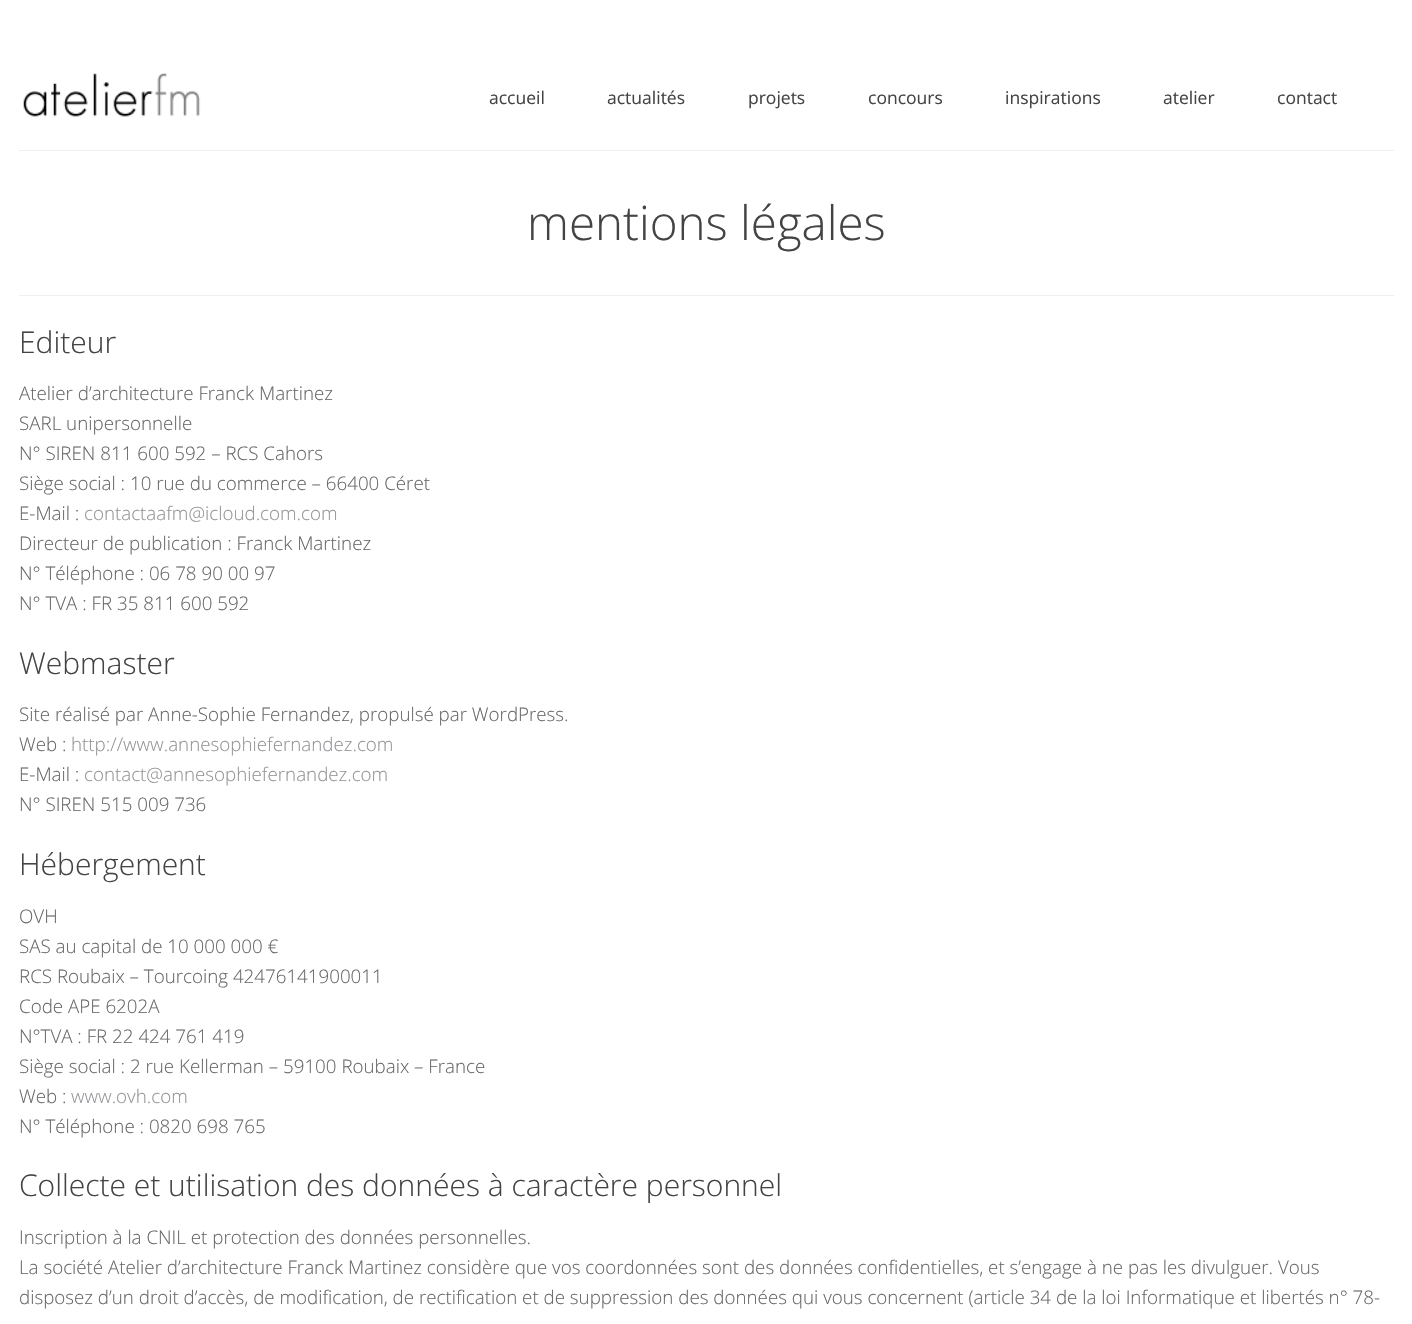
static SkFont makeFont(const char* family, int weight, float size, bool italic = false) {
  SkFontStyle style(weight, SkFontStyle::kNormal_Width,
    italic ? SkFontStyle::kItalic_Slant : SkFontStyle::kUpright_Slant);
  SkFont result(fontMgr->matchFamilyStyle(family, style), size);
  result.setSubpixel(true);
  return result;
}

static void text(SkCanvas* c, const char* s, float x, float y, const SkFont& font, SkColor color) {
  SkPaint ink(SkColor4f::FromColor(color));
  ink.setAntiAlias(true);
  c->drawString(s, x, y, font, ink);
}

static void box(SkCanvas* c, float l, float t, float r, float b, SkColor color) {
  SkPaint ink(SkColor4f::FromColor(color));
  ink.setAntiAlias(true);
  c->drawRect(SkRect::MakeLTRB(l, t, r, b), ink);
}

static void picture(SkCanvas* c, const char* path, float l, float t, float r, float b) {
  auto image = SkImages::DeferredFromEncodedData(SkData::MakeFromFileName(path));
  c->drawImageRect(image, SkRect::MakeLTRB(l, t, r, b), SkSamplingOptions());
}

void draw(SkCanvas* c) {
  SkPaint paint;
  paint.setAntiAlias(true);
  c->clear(0xffffffff);
  picture(c, "img_01.png", 23, 73, 201, 117);
  SkFont face1 = makeFont("Open Sans", 400, 17.5f);
  text(c, "accueil", 489, 104, face1, 0xff444444);
  text(c, "actualités", 607, 104, face1, 0xff444444);
  text(c, "projets", 748, 104, face1, 0xff444444);
  text(c, "concours", 868, 104, face1, 0xff444444);
  text(c, "inspirations", 1005, 104, face1, 0xff444444);
  text(c, "atelier", 1163, 104, face1, 0xff444444);
  text(c, "contact", 1277, 104, face1, 0xff444444);
  box(c, 19, 150, 1394, 151, 0xffefefef);
  box(c, 19, 295, 1394, 296, 0xffefefef);
  SkFont face2 = makeFont("Open Sans", 300, 47.5f);
  text(c, "mentions légales", 527, 240, face2, 0xff444444);
  SkFont face3 = makeFont("Open Sans", 300, 30);
  text(c, "Editeur", 19, 353, face3, 0xff444444);
  SkFont face4 = makeFont("Open Sans", 300, 18.75f);
  text(c, "Atelier d’architecture Franck Martinez", 19, 400, face4, 0xff686868);
  text(c, "SARL unipersonnelle", 19, 430, face4, 0xff686868);
  text(c, "N° SIREN 811 600 592 – RCS Cahors", 19, 460, face4, 0xff686868);
  text(c, "Siège social : 10 rue du commerce – 66400 Céret", 19, 490, face4, 0xff686868);
  text(c, "E-Mail :", 19, 520, face4, 0xff686868);
  text(c, "contactaafm@icloud.com.com", 84, 520, face4, 0xff939598);
  text(c, "Directeur de publication : Franck Martinez", 19, 550, face4, 0xff686868);
  text(c, "N° Téléphone : 06 78 90 00 97", 19, 580, face4, 0xff686868);
  text(c, "N° TVA : FR 35 811 600 592", 19, 610, face4, 0xff686868);
  text(c, "Webmaster", 19, 674, face3, 0xff444444);
  text(c, "Site réalisé par Anne-Sophie Fernandez, propulsé par WordPress.", 19, 721, face4, 0xff686868);
  text(c, "Web :", 19, 751, face4, 0xff686868);
  text(c, "http://www.annesophiefernandez.com", 71, 751, face4, 0xff939598);
  text(c, "E-Mail :", 19, 781, face4, 0xff686868);
  text(c, "contact@annesophiefernandez.com", 84, 781, face4, 0xff939598);
  text(c, "N° SIREN 515 009 736", 19, 811, face4, 0xff686868);
  text(c, "Hébergement", 19, 875, face3, 0xff444444);
  text(c, "OVH", 19, 923, face4, 0xff686868);
  text(c, "SAS au capital de 10 000 000 €", 19, 953, face4, 0xff686868);
  text(c, "RCS Roubaix – Tourcoing 42476141900011", 19, 983, face4, 0xff686868);
  text(c, "Code APE 6202A", 19, 1013, face4, 0xff686868);
  text(c, "N°TVA : FR 22 424 761 419", 19, 1043, face4, 0xff686868);
  text(c, "Siège social : 2 rue Kellerman – 59100 Roubaix – France", 19, 1073, face4, 0xff686868);
  text(c, "Web :", 19, 1103, face4, 0xff686868);
  text(c, "www.ovh.com", 71, 1103, face4, 0xff939598);
  text(c, "N° Téléphone : 0820 698 765", 19, 1133, face4, 0xff686868);
  text(c, "Collecte et utilisation des données à caractère personnel", 19, 1196, face3, 0xff444444);
  text(c, "Inscription à la CNIL et protection des données personnelles.", 19, 1244, face4, 0xff686868);
  text(c, "La société Atelier d’architecture Franck Martinez considère que vos coordonnées sont des données confidentielles, et s’engage à ne pas les divulguer. Vous", 19, 1274, face4, 0xff686868);
  text(c, "disposez d’un droit d’accès, de modification, de rectification et de suppression des données qui vous concernent (article 34 de la loi Informatique et libertés n° 78-", 19, 1304, face4, 0xff686868);
}
